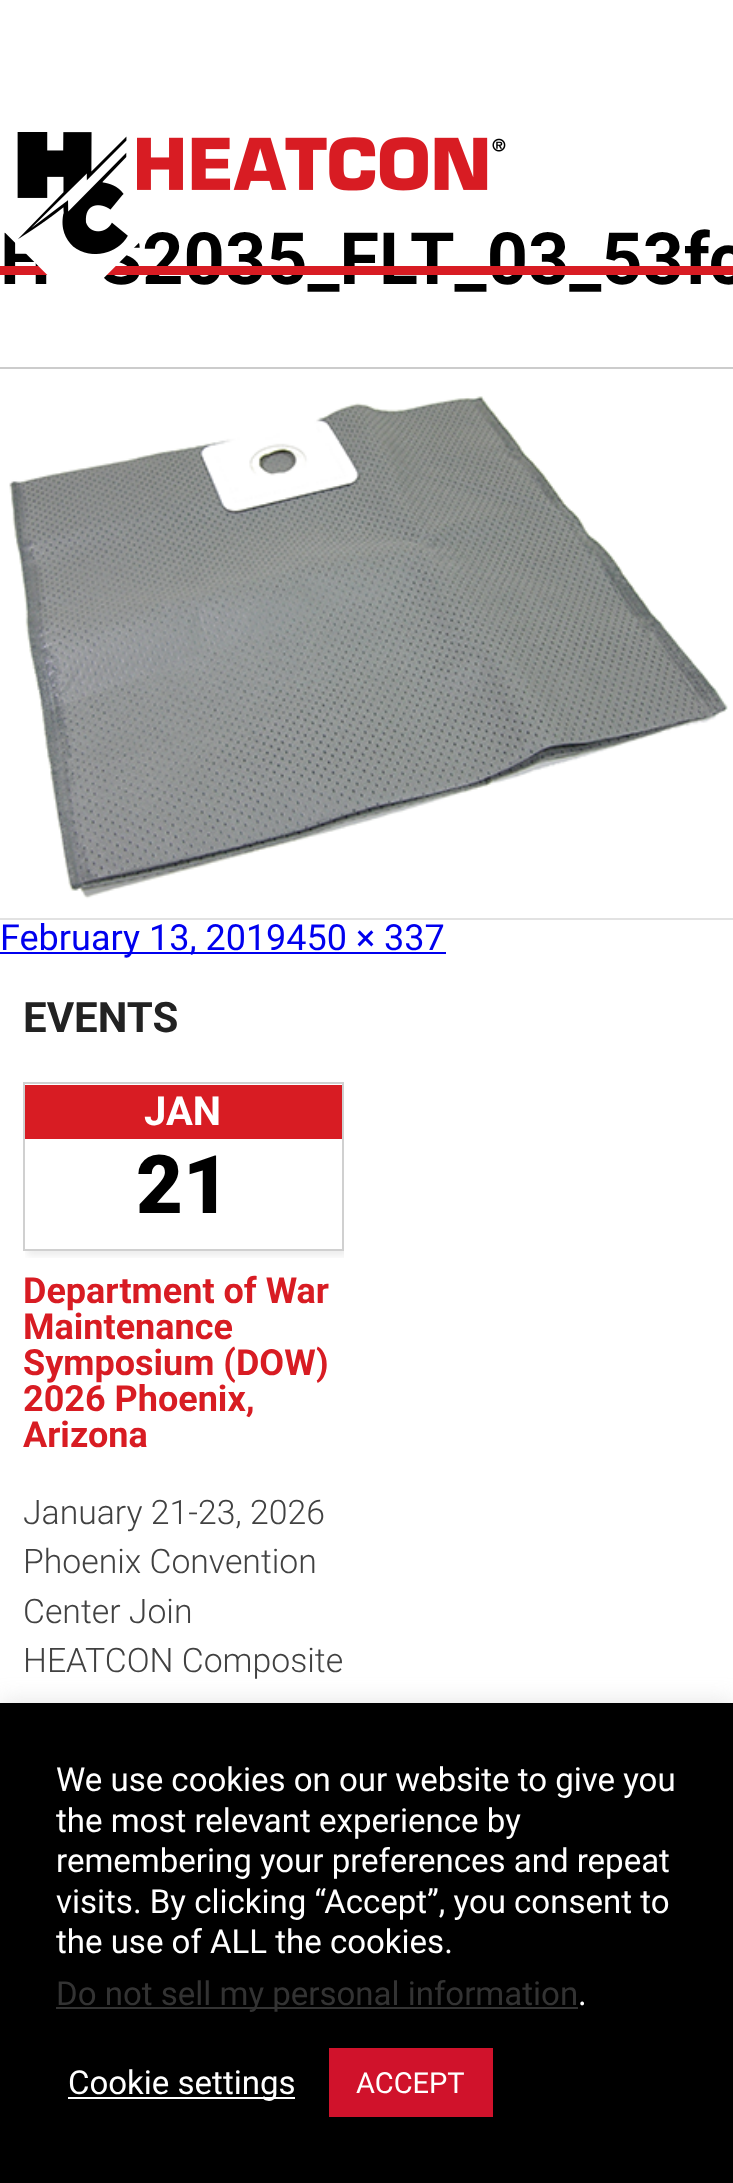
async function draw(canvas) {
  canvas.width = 733
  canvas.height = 2183
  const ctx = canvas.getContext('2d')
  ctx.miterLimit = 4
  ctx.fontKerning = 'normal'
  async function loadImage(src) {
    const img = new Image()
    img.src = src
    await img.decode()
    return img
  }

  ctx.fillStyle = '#fff'
  ctx.fillRect(0, 0, 733, 2183)
  ctx.font = 'bold 72px Roboto'
  ctx.fillStyle = '#000'
  ctx.fillText('HCS2035_FLT_03_53fc', 0, 284)
  ctx.fillStyle = '#d81c23'
  ctx.fillRect(0, 266, 733, 9)
  ctx.drawImage(await loadImage('image0.png'), 4, 132, 502, 153)
  ctx.fillStyle = '#ccc'
  ctx.fillRect(0, 367, 733, 2)
  ctx.drawImage(await loadImage('image1.png'), 2, 396, 726, 516)
  ctx.fillStyle = '#e2e2e2'
  ctx.fillRect(0, 918, 733, 2)
  ctx.fillStyle = '#00e'
  ctx.fillRect(0, 952, 446, 2)
  ctx.font = '36px Roboto'
  ctx.fillText('February 13, 2019450 × 337', 0, 950)
  ctx.font = 'bold 42px Roboto'
  ctx.fillStyle = '#222'
  ctx.fillText('EVENTS', 23, 1032)
  ctx.save()
  ctx.beginPath()
  ctx.rect(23, 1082, 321, 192)
  ctx.clip()
  ctx.beginPath()
  ctx.rect(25, 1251, 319, 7)
  ctx.clip()
  ctx.fillStyle = '#00000012'
  ctx.filter = 'blur(3.5px)'
  ctx.beginPath()
  ctx.rect(27, 1087, 322, 169)
  ctx.fill()
  ctx.filter = 'none'
  ctx.restore()
  ctx.strokeStyle = '#d0d0d0'
  ctx.lineWidth = 2
  ctx.strokeRect(24, 1083, 319, 167)
  ctx.fillStyle = '#d81c23'
  ctx.fillRect(25, 1085, 317, 54)
  ctx.font = 'bold 40px Roboto'
  ctx.fillStyle = '#fff'
  ctx.fillText('JAN', 144, 1125)
  ctx.font = '900 81px Roboto'
  ctx.fillStyle = '#000'
  ctx.fillText('21', 136, 1213)
  ctx.font = 'bold 36px Roboto'
  ctx.fillStyle = '#d81c23'
  ctx.fillText('Department of War', 23, 1303)
  ctx.fillText('Maintenance', 23, 1339)
  ctx.fillText('Symposium (DOW)', 23, 1375)
  ctx.fillText('2026 Phoenix,', 23, 1411)
  ctx.fillText('Arizona', 23, 1447)
  ctx.font = '300 33.75px Roboto'
  ctx.fillStyle = '#414141'
  ctx.fillText('January 21-23, 2026', 23, 1524)
  ctx.fillText('Phoenix Convention', 23, 1573)
  ctx.fillText('Center Join', 23, 1623)
  ctx.fillText('HEATCON Composite', 23, 1672)
  ctx.fillStyle = '#acabab4d'
  ctx.filter = 'blur(11px)'
  ctx.beginPath()
  ctx.rect(0, 1701, 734, 482)
  ctx.fill()
  ctx.filter = 'none'
  ctx.fillStyle = '#000'
  ctx.fillRect(0, 1703, 733, 480)
  ctx.font = '33px Roboto'
  ctx.fillStyle = '#fff'
  ctx.fillText('We use cookies on our website to give you', 56, 1791)
  ctx.fillText('the most relevant experience by', 56, 1832)
  ctx.fillText('remembering your preferences and repeat', 56, 1872)
  ctx.fillText('visits. By clicking “Accept”, you consent to', 56, 1913)
  ctx.fillText('the use of ALL the cookies.', 56, 1953)
  ctx.fillStyle = '#333'
  ctx.fillRect(56, 2007, 522, 2)
  ctx.fillText('Do not sell my personal information', 56, 2005)
  ctx.fillStyle = '#fff'
  ctx.fillText('.', 578, 2005)
  ctx.fillRect(68, 2097, 227, 2)
  ctx.fillText('Cookie settings', 68, 2094)
  ctx.fillStyle = '#d0122b'
  ctx.fillRect(329, 2048, 164, 69)
  ctx.font = '29px Roboto'
  ctx.fillStyle = '#fff'
  ctx.fillText('ACCEPT', 356, 2093)
}

draw(document.querySelector('canvas'))
